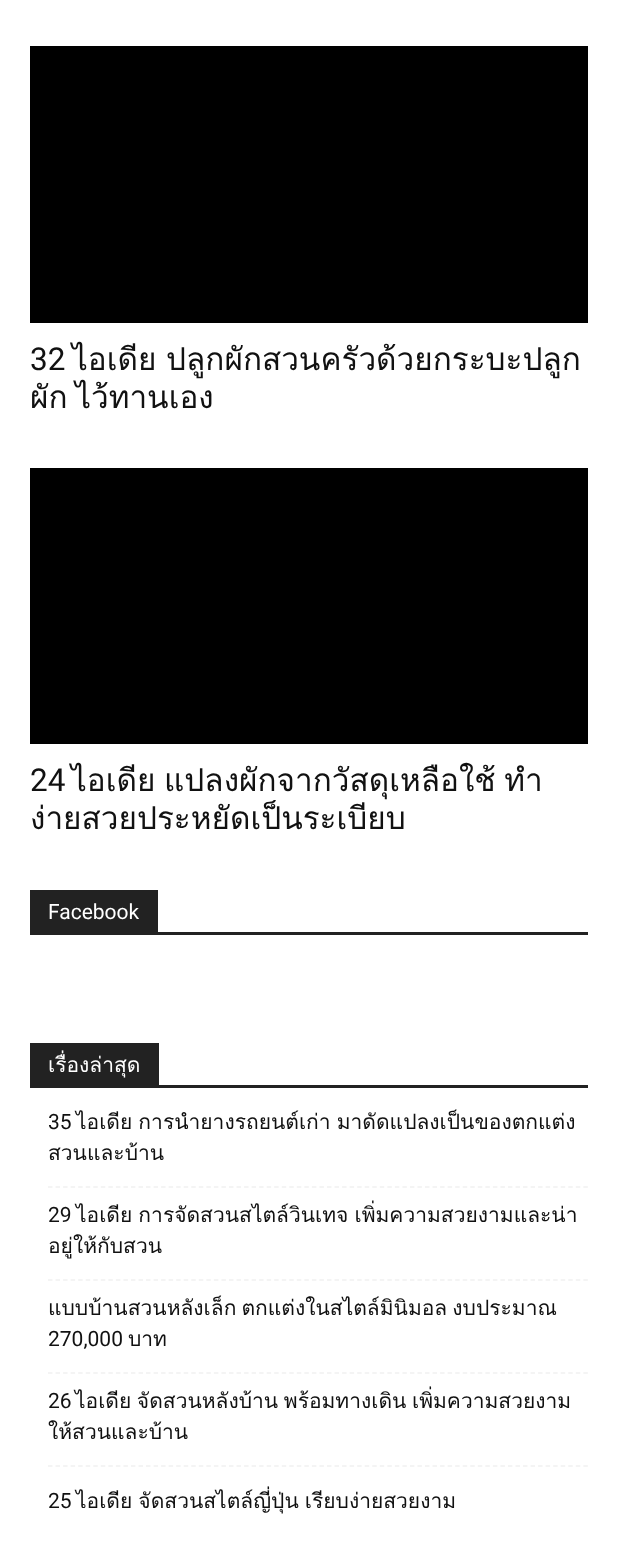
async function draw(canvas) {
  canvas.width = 617
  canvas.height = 1555
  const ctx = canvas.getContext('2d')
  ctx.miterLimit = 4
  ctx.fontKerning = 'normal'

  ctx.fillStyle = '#fff'
  ctx.fillRect(0, 0, 617, 1555)
  ctx.fillStyle = '#000'
  ctx.fillRect(30, 46, 558, 277)
  ctx.font = '31.5px Roboto'
  ctx.fillStyle = '#111'
  ctx.fillText('32', 30, 370)
  ctx.wordSpacing = '-1px'
  ctx.font = '31.5px Loma'
  ctx.fillText('ไอเดีย ปลูกผักสวนครัวด้วยกระบะปลูก', 72, 370)
  ctx.wordSpacing = '-3px'
  ctx.fillText('ผัก ไว้ทานเอง', 30, 408)
  ctx.fillStyle = '#000'
  ctx.fillRect(30, 468, 558, 276)
  ctx.wordSpacing = '0px'
  ctx.font = '31.5px Roboto'
  ctx.fillStyle = '#111'
  ctx.fillText('24', 30, 791)
  ctx.wordSpacing = '-2px'
  ctx.font = '31.5px Loma'
  ctx.fillText('ไอเดีย แปลงผักจากวัสดุเหลือใช้ ทำ', 71, 791)
  ctx.wordSpacing = '0px'
  ctx.fillText('ง่ายสวยประหยัดเป็นระเบียบ', 30, 829)
  ctx.fillStyle = '#222'
  ctx.fillRect(30, 932, 558, 3)
  ctx.fillRect(30, 890, 128, 42)
  ctx.font = '21px Roboto'
  ctx.fillStyle = '#fff'
  ctx.fillText('Facebook', 48, 919)
  ctx.fillStyle = '#222'
  ctx.fillRect(30, 1085, 558, 3)
  ctx.fillRect(30, 1043, 129, 42)
  ctx.font = '21px Loma'
  ctx.fillStyle = '#fff'
  ctx.fillText('เรื่องล่าสุด', 48, 1072)
  ctx.beginPath()
  ctx.moveTo(48, 1187)
  ctx.lineTo(588, 1187)
  ctx.strokeStyle = '#f1f1f1'
  ctx.lineWidth = 1.5
  ctx.setLineDash([4.5, 3.04])
  ctx.stroke()
  ctx.font = '21px Roboto'
  ctx.fillStyle = '#111'
  ctx.fillText('35', 48, 1129)
  ctx.wordSpacing = '-1px'
  ctx.font = '21px Loma'
  ctx.fillText('ไอเดีย การนำยางรถยนต์เก่า มาดัดแปลงเป็นของตกแต่ง', 76, 1129)
  ctx.wordSpacing = '0px'
  ctx.fillText('สวนและบ้าน', 48, 1160)
  ctx.beginPath()
  ctx.moveTo(48, 1280)
  ctx.lineTo(588, 1280)
  ctx.stroke()
  ctx.font = '21px Roboto'
  ctx.fillText('29', 48, 1222)
  ctx.wordSpacing = '-1px'
  ctx.font = '21px Loma'
  ctx.fillText('ไอเดีย การจัดสวนสไตล์วินเทจ เพิ่มความสวยงามและน่า', 76, 1222)
  ctx.wordSpacing = '0px'
  ctx.fillText('อยู่ให้กับสวน', 48, 1253)
  ctx.beginPath()
  ctx.moveTo(48, 1373)
  ctx.lineTo(588, 1373)
  ctx.stroke()
  ctx.wordSpacing = '-2px'
  ctx.fillText('แบบบ้านสวนหลังเล็ก ตกแต่งในสไตล์มินิมอล งบประมาณ', 48, 1315)
  ctx.wordSpacing = '0px'
  ctx.font = '21px Roboto'
  ctx.fillText('270,000', 48, 1346)
  ctx.font = '21px Loma'
  ctx.fillText('บาท', 128, 1346)
  ctx.beginPath()
  ctx.moveTo(48, 1466)
  ctx.lineTo(588, 1466)
  ctx.stroke()
  ctx.font = '21px Roboto'
  ctx.fillText('26', 48, 1408)
  ctx.wordSpacing = '-1.5px'
  ctx.font = '21px Loma'
  ctx.fillText('ไอเดีย จัดสวนหลังบ้าน พร้อมทางเดิน เพิ่มความสวยงาม', 75, 1408)
  ctx.wordSpacing = '0px'
  ctx.fillText('ให้สวนและบ้าน', 48, 1439)
  ctx.font = '21px Roboto'
  ctx.fillText('25', 48, 1508)
  ctx.wordSpacing = '-1px'
  ctx.font = '21px Loma'
  ctx.fillText('ไอเดีย จัดสวนสไตล์ญี่ปุ่น เรียบง่ายสวยงาม', 76, 1508)
}

draw(document.querySelector('canvas'))
